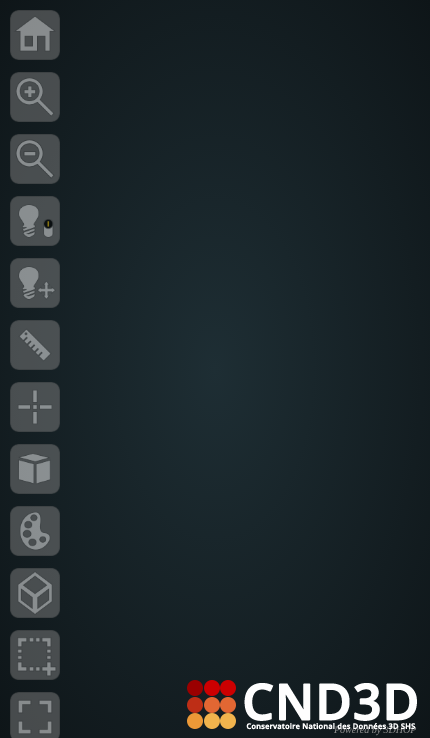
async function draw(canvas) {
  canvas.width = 430
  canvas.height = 738
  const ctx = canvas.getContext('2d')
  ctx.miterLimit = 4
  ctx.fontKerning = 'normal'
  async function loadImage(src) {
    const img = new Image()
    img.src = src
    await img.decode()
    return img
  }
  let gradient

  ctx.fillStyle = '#fff'
  ctx.fillRect(0, 0, 430, 738)
  gradient = ctx.createRadialGradient(215, 214.9, 0, 215, 214.9, 304)
  gradient.addColorStop(0, '#1e2e34')
  gradient.addColorStop(1, '#0e1518')
  ctx.fillStyle = gradient
  ctx.beginPath()
  ctx.rect(0, 0, 430, 738)
  ctx.save()
  ctx.clip()
  ctx.scale(1, 522 / 304)
  ctx.fillRect(0, 0, 430, 430)
  ctx.restore()
  ctx.drawImage(await loadImage('image0.png'), 10, 10, 50, 50)
  ctx.drawImage(await loadImage('image1.png'), 10, 72, 50, 50)
  ctx.drawImage(await loadImage('image2.png'), 10, 134, 50, 50)
  ctx.drawImage(await loadImage('image3.png'), 10, 196, 50, 50)
  ctx.drawImage(await loadImage('image4.png'), 10, 258, 50, 50)
  ctx.drawImage(await loadImage('image5.png'), 10, 320, 50, 50)
  ctx.drawImage(await loadImage('image6.png'), 10, 382, 50, 50)
  ctx.drawImage(await loadImage('image7.png'), 10, 444, 50, 50)
  ctx.drawImage(await loadImage('image8.png'), 10, 506, 50, 50)
  ctx.drawImage(await loadImage('image9.png'), 10, 568, 50, 50)
  ctx.drawImage(await loadImage('image10.png'), 10, 630, 50, 50)
  ctx.drawImage(await loadImage('image11.png'), 10, 692, 50, 46)
  ctx.font = 'italic 10px Liberation Serif'
  ctx.fillStyle = '#909090'
  ctx.fillText('Powered by 3DHOP', 334, 733)
  ctx.drawImage(await loadImage('image12.png'), 187, 680, 230, 50)
}

draw(document.querySelector('canvas'))
